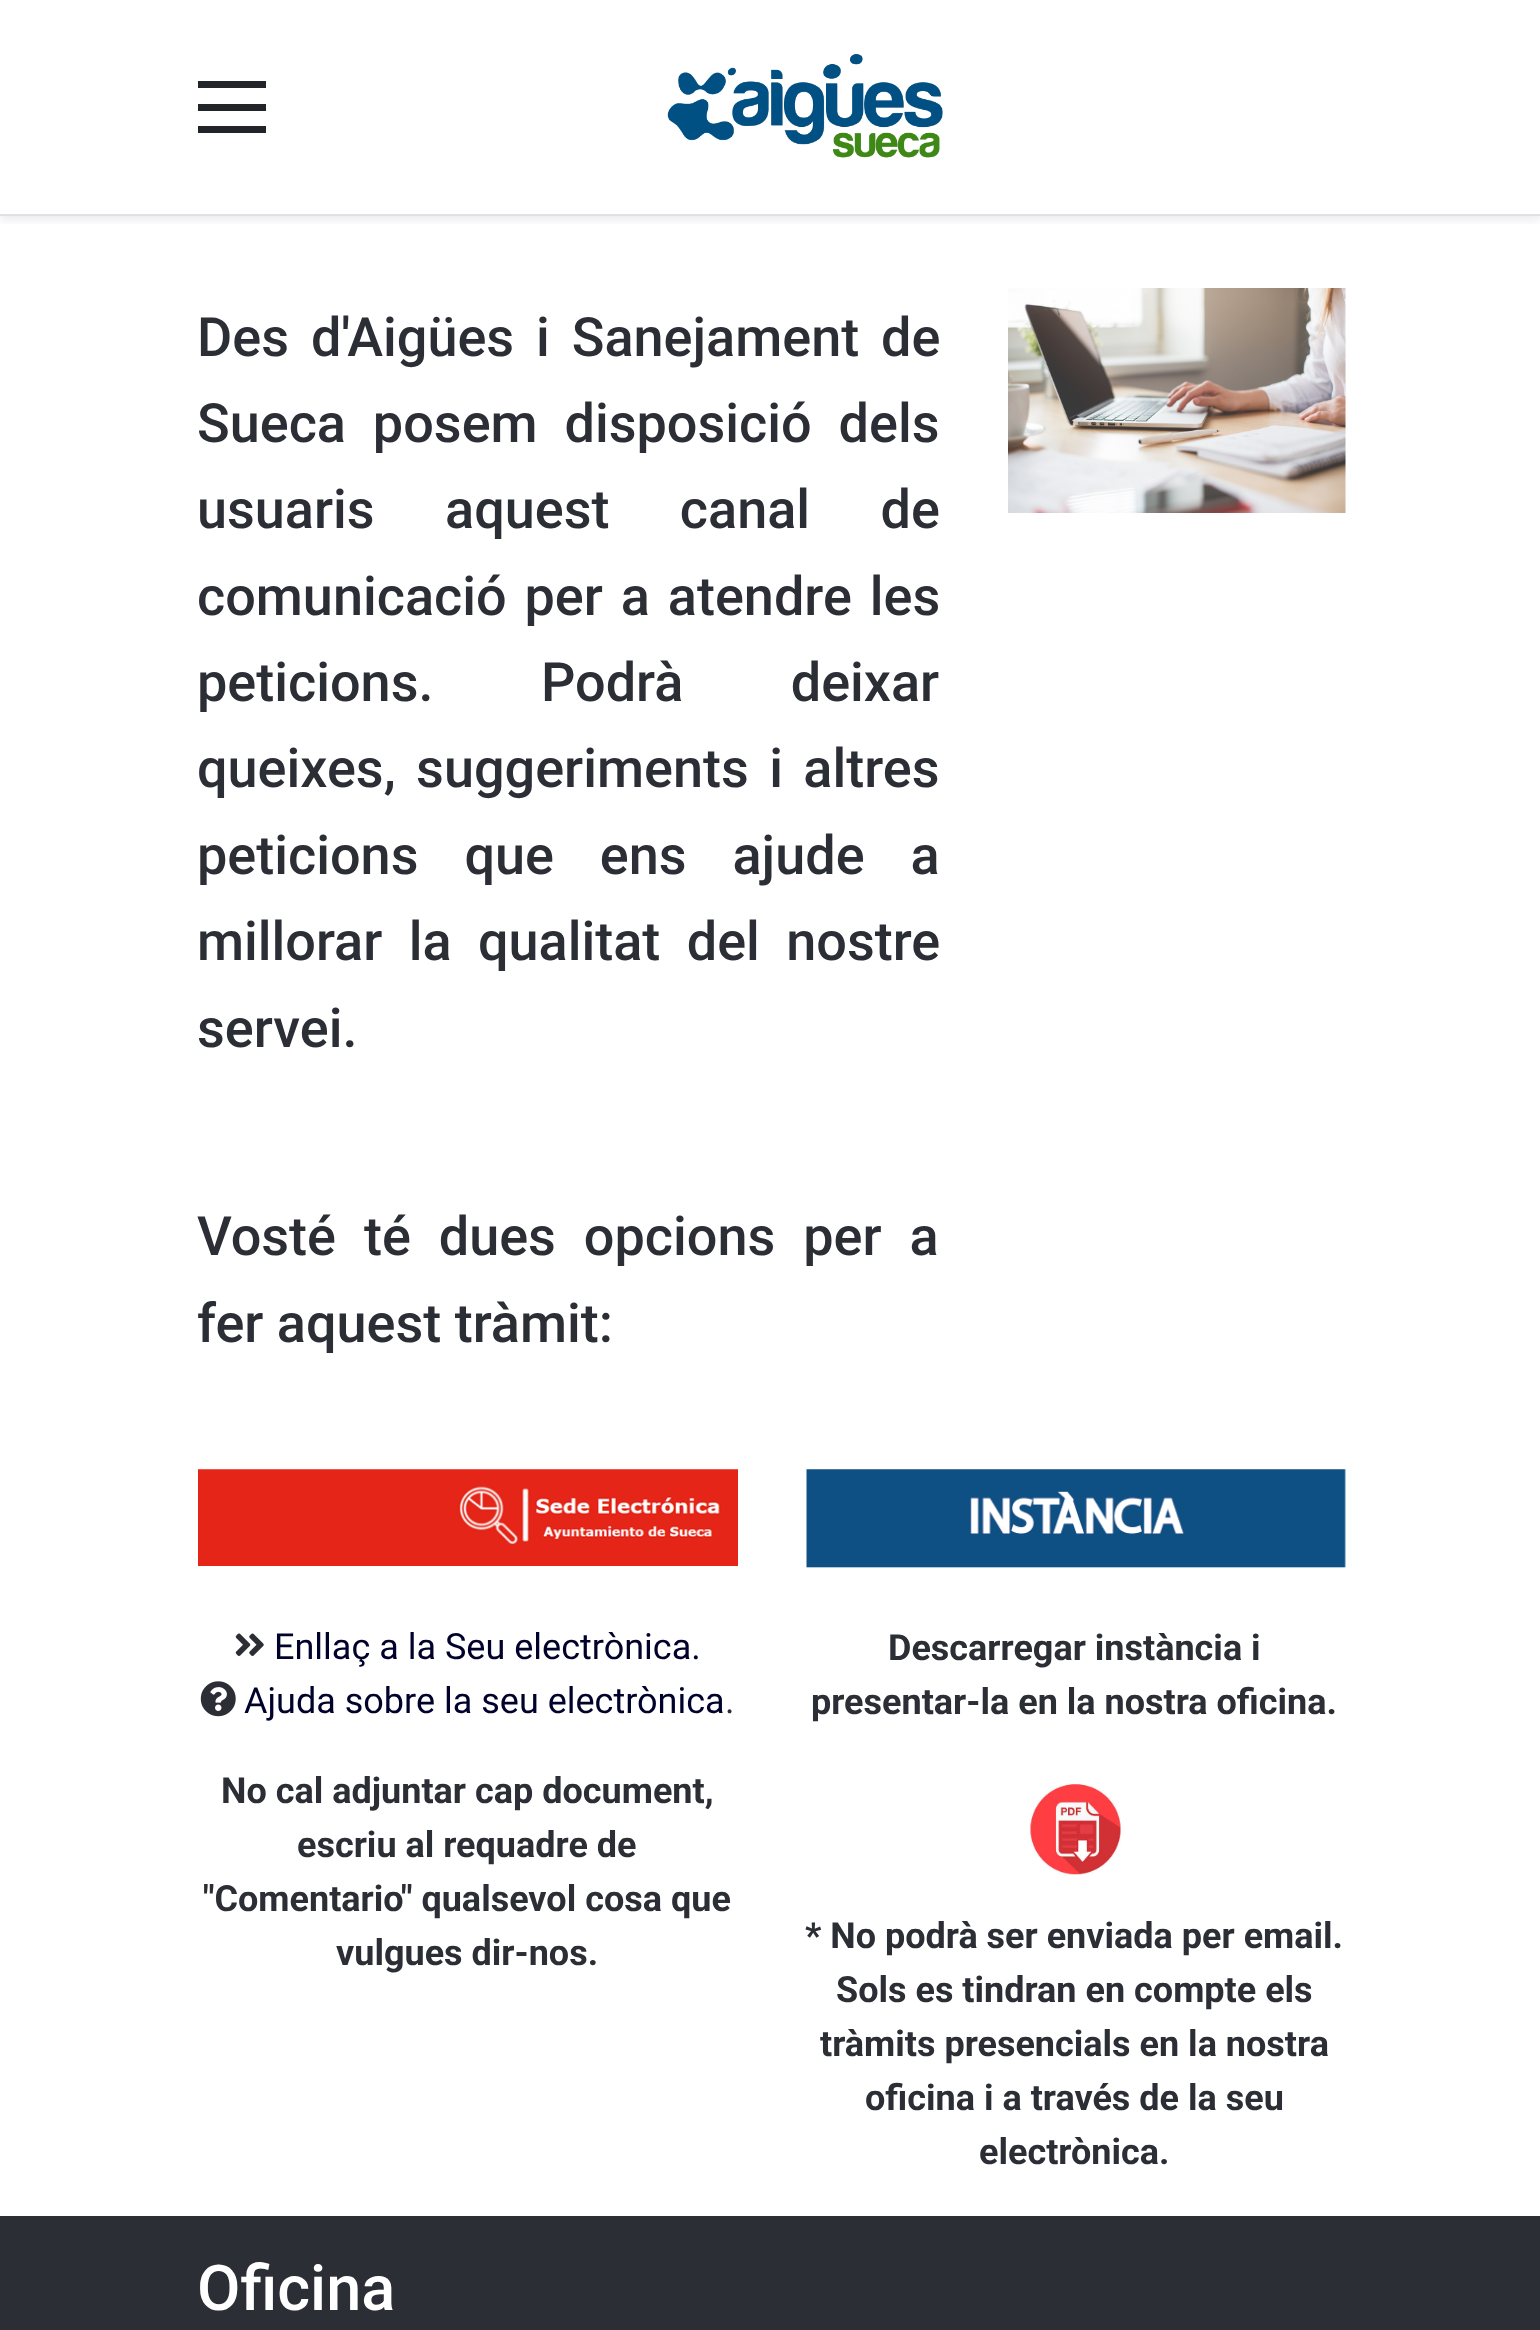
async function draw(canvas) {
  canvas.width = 1540
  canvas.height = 2330
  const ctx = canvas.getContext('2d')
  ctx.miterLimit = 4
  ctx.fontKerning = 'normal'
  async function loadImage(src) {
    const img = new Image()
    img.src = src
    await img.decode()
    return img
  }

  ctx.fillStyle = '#fff'
  ctx.fillRect(0, 0, 1540, 2330)
  ctx.save()
  ctx.beginPath()
  ctx.rect(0, 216, 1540, 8)
  ctx.clip()
  ctx.fillStyle = '#00000012'
  ctx.filter = 'blur(4.5px)'
  ctx.beginPath()
  ctx.rect(0, 5, 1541, 216)
  ctx.fill()
  ctx.filter = 'none'
  ctx.restore()
  ctx.fillStyle = '#dee2e6'
  ctx.fillRect(0, 214, 1540, 2)
  ctx.fillStyle = '#212529'
  ctx.fillRect(198, 104, 68, 7)
  ctx.fillRect(198, 81, 68, 7)
  ctx.fillRect(198, 126, 68, 7)
  ctx.drawImage(await loadImage('image0.png'), 667, 54, 276, 104)
  ctx.wordSpacing = '8.5px'
  ctx.font = '500 54px Roboto'
  ctx.fillStyle = '#2c2e36'
  ctx.fillText('Des d\'Aigües i Sanejament de', 197, 356)
  ctx.wordSpacing = '13.5px'
  ctx.fillText('Sueca posem disposició dels', 197, 442)
  ctx.wordSpacing = '57px'
  ctx.fillText('usuaris aquest canal de', 197, 528)
  ctx.wordSpacing = '4.5px'
  ctx.fillText('comunicació per a atendre les', 197, 615)
  ctx.wordSpacing = '94px'
  ctx.fillText('peticions. Podrà deixar', 197, 701)
  ctx.wordSpacing = '7px'
  ctx.fillText('queixes, suggeriments i altres', 197, 787)
  ctx.wordSpacing = '32.5px'
  ctx.fillText('peticions que ens ajude a', 197, 874)
  ctx.wordSpacing = '13px'
  ctx.fillText('millorar la qualitat del nostre', 197, 960)
  ctx.wordSpacing = '0px'
  ctx.fillText('servei.', 197, 1047)
  ctx.wordSpacing = '14.5px'
  ctx.fillText('Vosté té dues opcions per a', 197, 1255)
  ctx.wordSpacing = '0px'
  ctx.fillText('fer aquest tràmit:', 197, 1342)
  ctx.drawImage(await loadImage('image1.png'), 1008, 288, 338, 225)
  ctx.drawImage(await loadImage('image2.png'), 198, 1469, 540, 97)
  ctx.drawImage(await loadImage('image3.png'), 235, 1633, 29, 23)
  ctx.font = '36px Roboto'
  ctx.fillStyle = '#01022c'
  ctx.fillText('Enllaç a la Seu electrònica.', 274, 1659)
  ctx.drawImage(await loadImage('image4.png'), 200, 1681, 36, 36)
  ctx.fillText('Ajuda sobre la seu electrònica', 244, 1713)
  ctx.fillStyle = '#2c2e36'
  ctx.fillText('.', 725, 1713)
  ctx.font = 'bold 36px Roboto'
  ctx.fillText('No cal adjuntar cap document,', 221, 1803)
  ctx.fillText('escriu al requadre de', 297, 1857)
  ctx.fillText('"Comentario', 203, 1911)
  ctx.fillText('" qualsevol cosa que', 401, 1911)
  ctx.fillText('vulgues dir-nos.', 336, 1965)
  ctx.drawImage(await loadImage('image5.png'), 806, 1469, 540, 99)
  ctx.fillText('Descarregar instància i', 888, 1660)
  ctx.fillText('presentar-la en la nostra oficina.', 811, 1714)
  ctx.drawImage(await loadImage('image6.png'), 1030, 1784, 91, 91)
  ctx.fillText('* No podrà ser enviada per email.', 805, 1948)
  ctx.fillText('Sols es tindran en compte els', 836, 2002)
  ctx.fillText('tràmits presencials en la nostra', 820, 2056)
  ctx.fillText('oficina i a través de la seu', 865, 2110)
  ctx.fillText('electrònica.', 979, 2164)
  ctx.fillRect(0, 2216, 1540, 114)
  ctx.font = '500 63px Roboto'
  ctx.fillStyle = '#fff'
  ctx.fillText('Oficina', 197, 2310)
}

draw(document.querySelector('canvas'))
